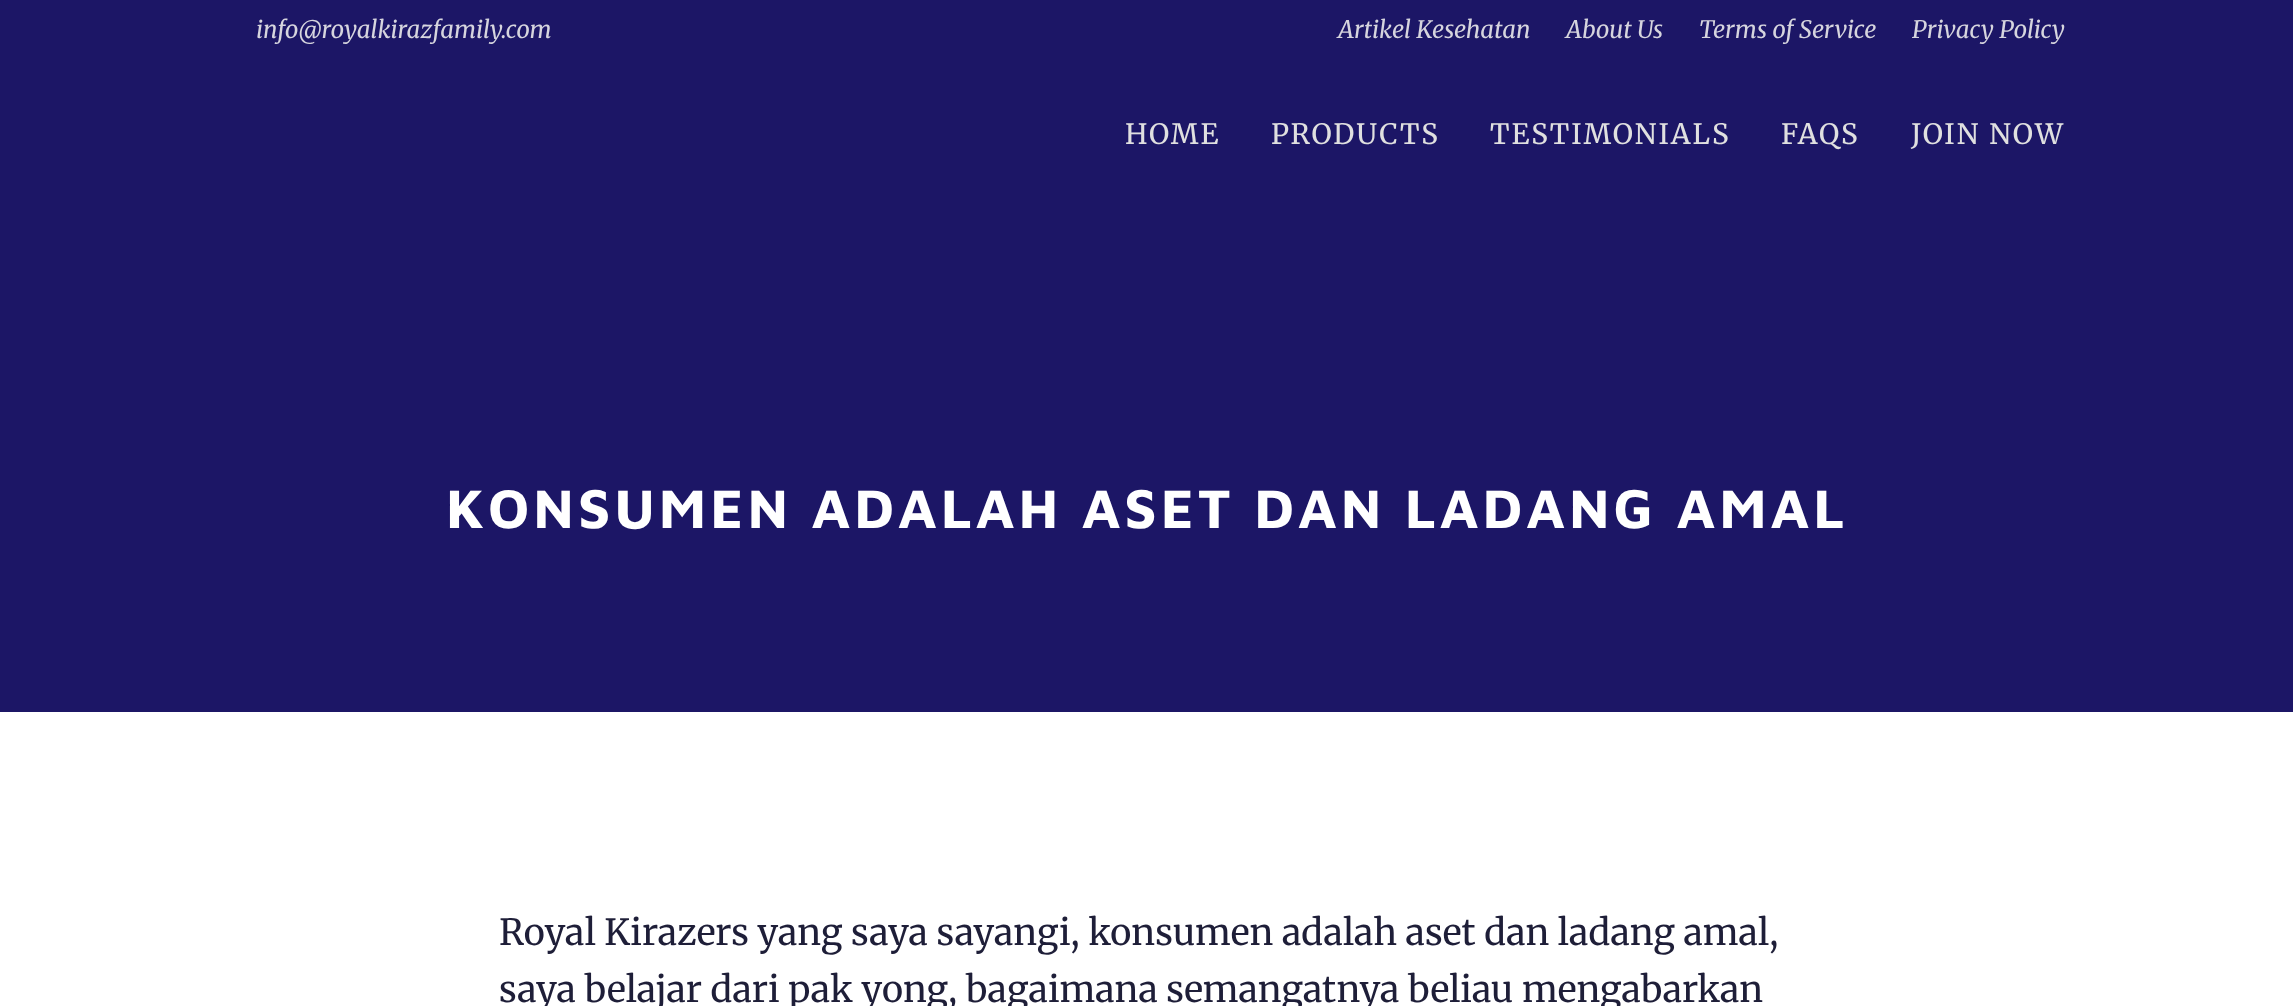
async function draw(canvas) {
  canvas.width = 2293
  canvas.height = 1006
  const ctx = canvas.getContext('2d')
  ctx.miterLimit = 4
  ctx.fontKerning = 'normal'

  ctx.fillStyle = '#fff'
  ctx.fillRect(0, 0, 2293, 1006)
  ctx.fillStyle = '#1c1666'
  ctx.fillRect(0, 0, 2293, 712)
  ctx.font = 'italic 24px Merriweather'
  ctx.fillStyle = '#d6d5de'
  ctx.fillText('info@royalkirazfamily.com', 256, 38)
  ctx.fillText('Artikel Kesehatan', 1338, 38)
  ctx.fillText('About Us', 1566, 38)
  ctx.fillText('Terms of Service', 1699, 38)
  ctx.fillText('Privacy Policy', 1912, 38)
  ctx.letterSpacing = '2px'
  ctx.font = '28px Merriweather'
  ctx.fillStyle = '#e0e0e0'
  ctx.fillText('HOME', 1125, 144)
  ctx.fillText('PRODUCTS', 1271, 144)
  ctx.fillText('TESTIMONIALS', 1490, 144)
  ctx.fillText('FAQS', 1781, 144)
  ctx.fillText('JOIN NOW', 1911, 144)
  ctx.letterSpacing = '4px'
  ctx.font = 'bold 56px Maven Pro'
  ctx.fillStyle = '#fff'
  ctx.fillText('KONSUMEN ADALAH ASET DAN LADANG AMAL', 446, 528)
  ctx.letterSpacing = '0px'
  ctx.font = '36px Merriweather'
  ctx.fillStyle = '#1e1e38'
  ctx.fillText('Royal Kirazers yang saya sayangi, konsumen adalah aset dan ladang amal,', 499, 945)
  ctx.fillText('saya belajar dari pak yong, bagaimana semangatnya beliau mengabarkan', 499, 1002)
}

draw(document.querySelector('canvas'))
